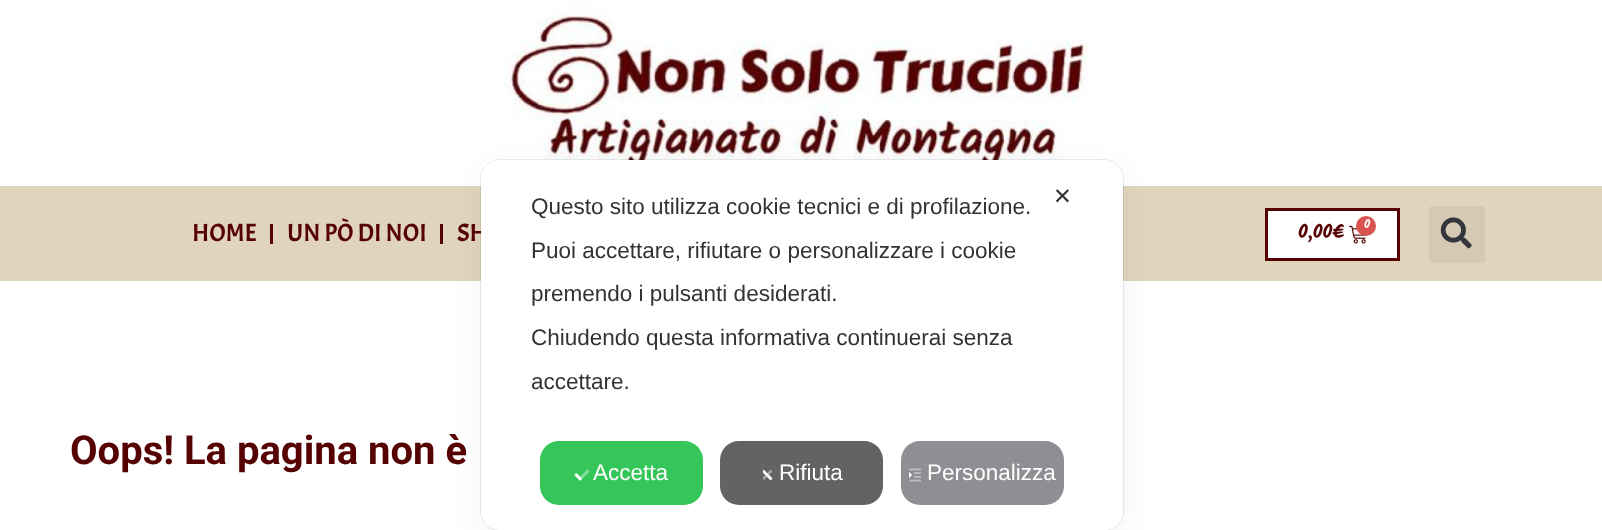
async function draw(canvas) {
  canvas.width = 1602
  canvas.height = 530
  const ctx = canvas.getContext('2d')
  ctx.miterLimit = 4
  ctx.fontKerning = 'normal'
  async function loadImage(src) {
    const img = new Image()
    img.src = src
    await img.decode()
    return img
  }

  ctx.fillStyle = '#fff'
  ctx.fillRect(0, 0, 1602, 530)
  ctx.drawImage(await loadImage('image3.png'), 494, 0, 598, 161)
  ctx.fillStyle = '#e0d4bc'
  ctx.fillRect(0, 186, 1602, 95)
  ctx.font = '25px Acme'
  ctx.fillStyle = '#560202'
  ctx.fillText('SH', 457, 241)
  ctx.beginPath()
  ctx.roundRect(480.5, 159.5, 643, 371, 19.5)
  ctx.strokeStyle = '#00000014'
  ctx.stroke()
  ctx.fillRect(440, 224, 3, 20)
  ctx.fillStyle = '#0000000d'
  ctx.filter = 'blur(15px)'
  ctx.beginPath()
  ctx.roundRect(481, 168, 642, 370, 19)
  ctx.fill()
  ctx.filter = 'none'
  ctx.fillStyle = '#fff'
  ctx.beginPath()
  ctx.roundRect(481, 160, 642, 370, 19)
  ctx.fill()
  ctx.font = '22.5px Liberation Sans'
  ctx.fillStyle = '#333'
  ctx.fillText('Questo sito utilizza cookie tecnici e di profilazione.', 531, 214)
  ctx.fillText('Puoi accettare, rifiutare o personalizzare i cookie', 531, 258)
  ctx.fillText('premendo i pulsanti desiderati.', 531, 301)
  ctx.fillText('Chiudendo questa informativa continuerai senza', 531, 345)
  ctx.fillText('accettare.', 531, 389)
  ctx.fillStyle = '#34c659'
  ctx.beginPath()
  ctx.roundRect(540, 441, 163, 64, 19)
  ctx.fill()
  ctx.drawImage(await loadImage('image0.png'), 574, 469, 15, 12)
  ctx.fillStyle = '#fff'
  ctx.fillText('Accetta', 593, 480)
  ctx.fillStyle = '#636366'
  ctx.beginPath()
  ctx.roundRect(720, 441, 163, 64, 19)
  ctx.fill()
  ctx.drawImage(await loadImage('image1.png'), 763, 469, 10, 12)
  ctx.fillStyle = '#fff'
  ctx.fillText('Rifiuta', 779, 480)
  ctx.fillStyle = '#8e8e93'
  ctx.beginPath()
  ctx.roundRect(901, 441, 163, 64, 19)
  ctx.fill()
  ctx.drawImage(await loadImage('image2.png'), 909, 468, 12, 14)
  ctx.fillStyle = '#fff'
  ctx.fillText('Personalizza', 927, 480)
  ctx.font = '22.5px DejaVu Sans'
  ctx.fillStyle = '#333'
  ctx.fillText('✕', 1053, 204)
  ctx.font = '25px Acme'
  ctx.fillStyle = '#560202'
  ctx.fillText('HOME', 192, 241)
  ctx.fillRect(270, 224, 3, 20)
  ctx.fillText('UN PÒ DI NOI', 287, 241)
  ctx.fillStyle = '#fff'
  ctx.beginPath()
  ctx.rect(1266.5, 209.5, 132, 50)
  ctx.fill()
  ctx.strokeStyle = '#560202'
  ctx.lineWidth = 3
  ctx.stroke()
  ctx.drawImage(await loadImage('image4.png'), 1349, 225, 17, 19)
  ctx.fillStyle = '#d9534f'
  ctx.beginPath()
  ctx.arc(1366, 226, 10, 0, 2 * Math.PI)
  ctx.fill()
  ctx.font = 'bold 12px Kalam'
  ctx.fillStyle = '#fff'
  ctx.fillText('0', 1364, 228)
  ctx.font = 'bold 19px Kalam'
  ctx.fillStyle = '#560202'
  ctx.fillText('0,00€', 1298, 238)
  ctx.fillStyle = '#d5c9b3'
  ctx.beginPath()
  ctx.roundRect(1429, 206, 56, 57, 4)
  ctx.fill()
  ctx.drawImage(await loadImage('image5.png'), 1440, 217, 32, 32)
  ctx.font = 'bold 40px Roboto'
  ctx.fillStyle = '#560202'
  ctx.fillText('Oops! La pagina non è', 70, 464)
}

draw(document.querySelector('canvas'))
